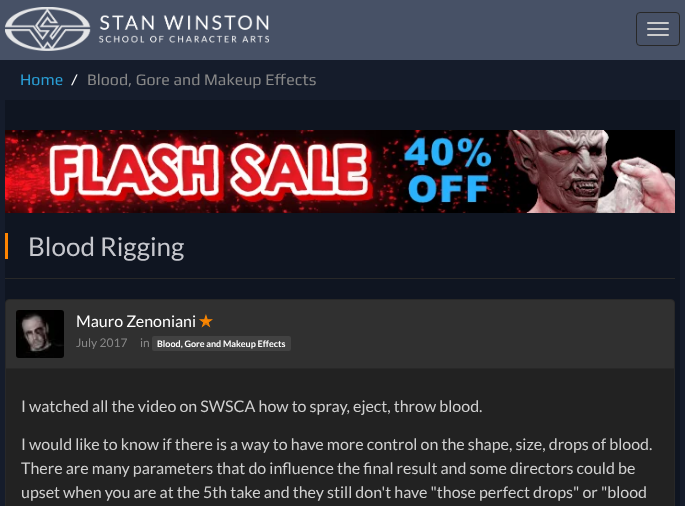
async function draw(canvas) {
  canvas.width = 685
  canvas.height = 506
  const ctx = canvas.getContext('2d')
  ctx.miterLimit = 4
  ctx.fontKerning = 'normal'
  async function loadImage(src) {
    const img = new Image()
    img.src = src
    await img.decode()
    return img
  }

  ctx.fillStyle = '#151c2b'
  ctx.fillRect(0, 0, 685, 506)
  ctx.fillStyle = '#475166'
  ctx.fillRect(0, 0, 685, 60)
  ctx.drawImage(await loadImage('image0.png'), 5, 7, 264, 44)
  ctx.beginPath()
  ctx.roundRect(636.5, 12.5, 43, 33, 3.5)
  ctx.strokeStyle = '#282828'
  ctx.stroke()
  ctx.fillStyle = '#ccc'
  ctx.beginPath()
  ctx.roundRect(647, 22, 22, 2, 1)
  ctx.fill()
  ctx.beginPath()
  ctx.roundRect(647, 28, 22, 2, 1)
  ctx.fill()
  ctx.beginPath()
  ctx.roundRect(647, 34, 22, 2, 1)
  ctx.fill()
  ctx.font = '16px Play'
  ctx.fillStyle = '#2a9fd6'
  ctx.fillText('Home', 20, 85)
  ctx.fillStyle = '#fff'
  ctx.fillText('/', 71, 85)
  ctx.fillStyle = '#888'
  ctx.fillText('Blood, Gore and Makeup Effects', 87, 85)
  ctx.fillStyle = '#0f1521'
  ctx.fillRect(5, 100, 675, 406)
  ctx.drawImage(await loadImage('image1.png'), 5, 130, 670, 83)
  ctx.fillStyle = '#282828'
  ctx.fillRect(5, 278, 670, 1)
  ctx.fillStyle = '#ff8400'
  ctx.fillRect(5, 233, 3, 26)
  ctx.font = '26px Lato'
  ctx.fillStyle = '#c6c7cd'
  ctx.fillText('Blood Rigging', 28, 256)
  ctx.fillStyle = '#222'
  ctx.beginPath()
  ctx.roundRect(5.5, 299.5, 669, 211, 3.5)
  ctx.fill()
  ctx.stroke()
  ctx.fillStyle = '#303030'
  ctx.beginPath()
  ctx.roundRect(6, 300, 668, 69, [3, 3, 0, 0])
  ctx.fill()
  ctx.fillStyle = '#282828'
  ctx.fillRect(6, 368, 668, 1)
  ctx.drawImage(await loadImage('image2.png'), 16, 310, 48, 48)
  ctx.font = '16px Lato'
  ctx.fillStyle = '#fff'
  ctx.fillText('Mauro Zenoniani', 76, 327)
  ctx.font = 'bold 16px DejaVu Sans'
  ctx.fillStyle = '#f80'
  ctx.fillText('✭', 199, 327)
  ctx.font = '12px Lato'
  ctx.fillStyle = '#888'
  ctx.fillText('July 2017', 76, 347)
  ctx.fillText('in', 140, 347)
  ctx.fillStyle = '#424242'
  ctx.beginPath()
  ctx.roundRect(152, 336, 139, 15, 2)
  ctx.fill()
  ctx.font = 'bold 9px Lato'
  ctx.fillStyle = '#fff'
  ctx.fillText('Blood, Gore and Makeup Effects', 157, 347)
  ctx.font = '16px Lato'
  ctx.fillStyle = '#d0d0d0'
  ctx.fillText('I watched all the video on SWSCA how to spray, eject, throw blood.', 21, 412)
  ctx.fillText('I would like to know if there is a way to have more control on the shape, size, drops of blood.', 21, 450)
  ctx.fillText('There are many parameters that do influence the final result and some directors could be', 21, 474)
  ctx.fillText('upset when you are at the 5th take and they still don\'t have "those perfect drops" or "blood', 21, 498)
}

draw(document.querySelector('canvas'))
